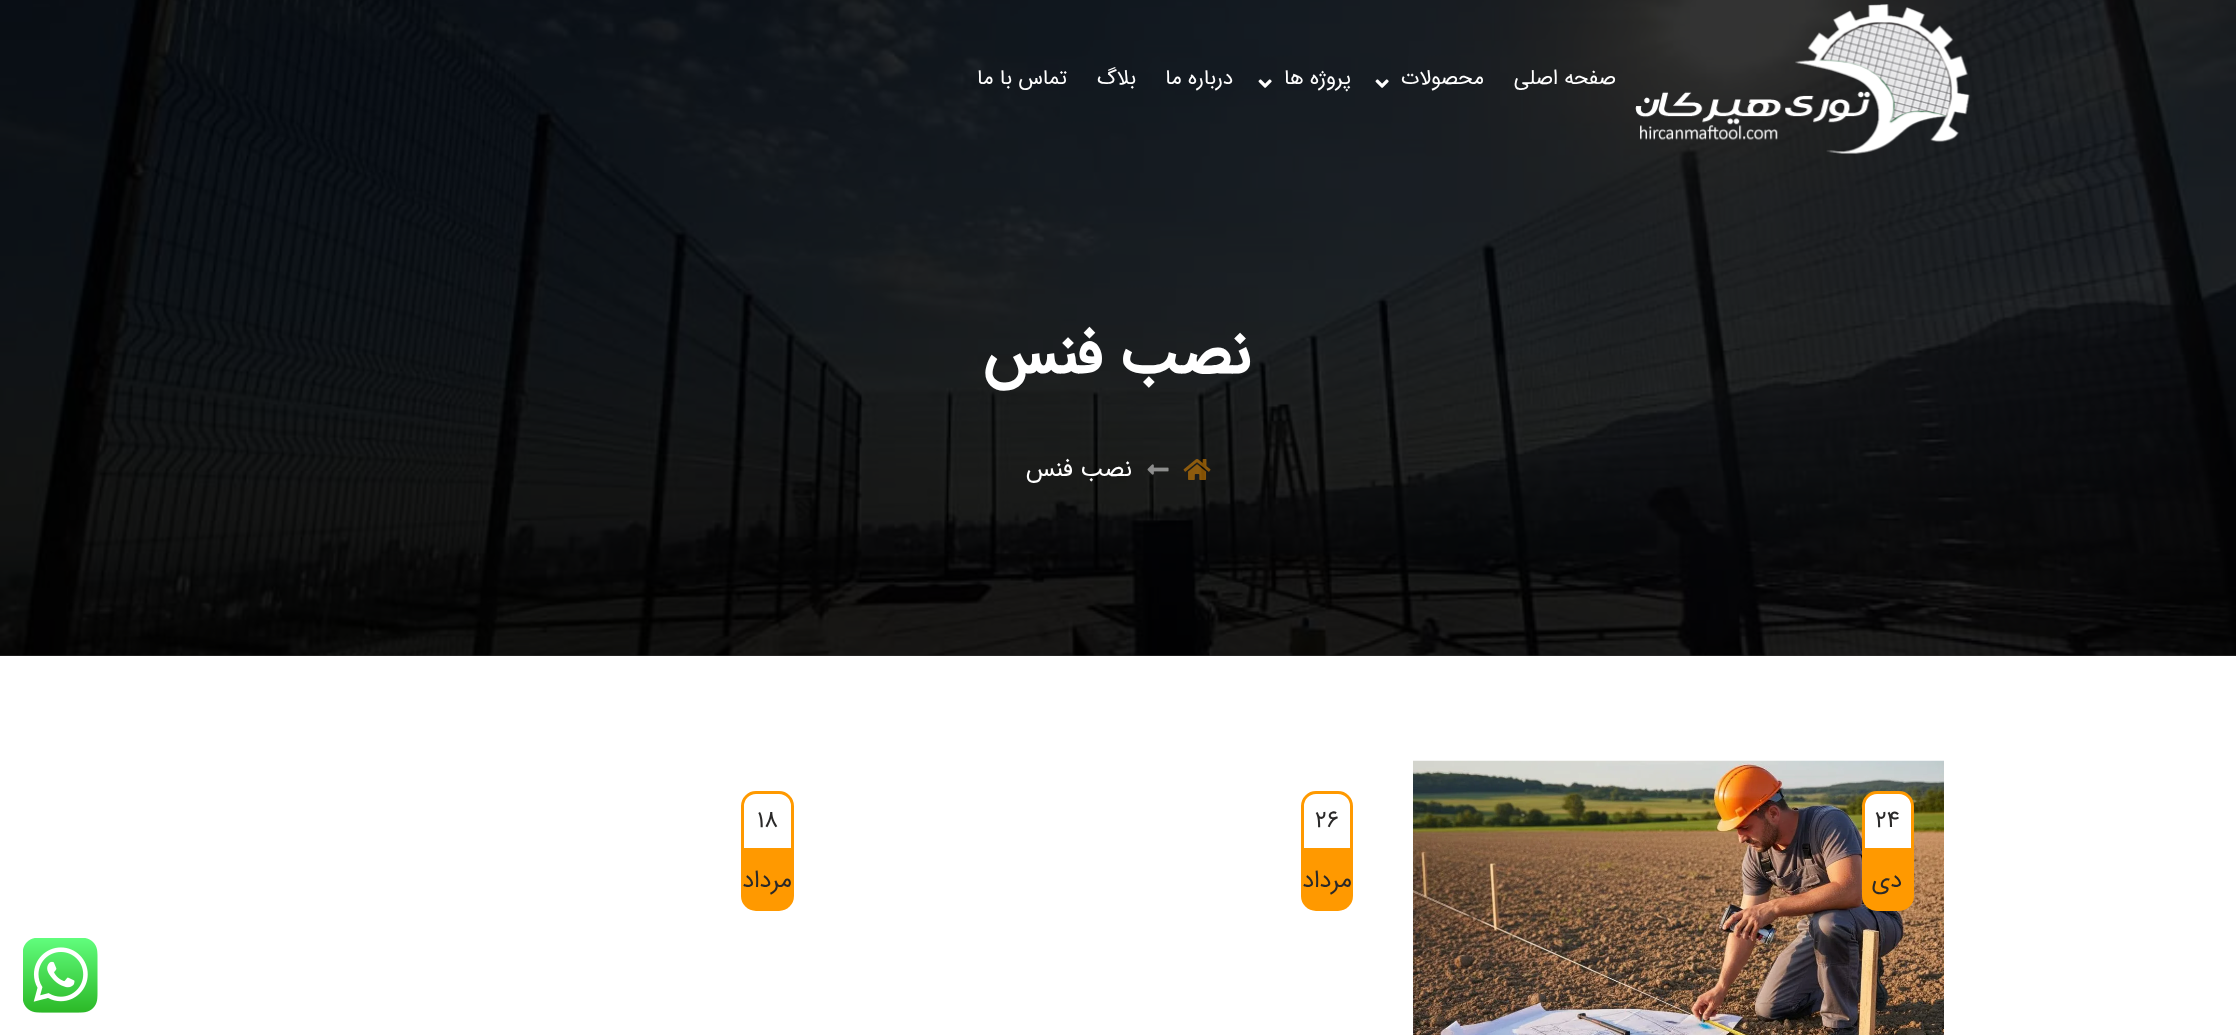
async function draw(canvas) {
  canvas.width = 2236
  canvas.height = 1035
  const ctx = canvas.getContext('2d')
  ctx.miterLimit = 4
  ctx.fontKerning = 'normal'
  async function loadImage(src) {
    const img = new Image()
    img.src = src
    await img.decode()
    return img
  }

  ctx.fillStyle = '#fff'
  ctx.fillRect(0, 0, 2236, 1035)
  ctx.fillStyle = '#333'
  ctx.fillRect(0, 655, 2236, 1)
  ctx.drawImage(await loadImage('image3.png'), 0, 0, 2236, 656)
  ctx.drawImage(await loadImage('image0.png'), 1635, 4, 335, 150)
  ctx.direction = 'rtl'
  ctx.font = '21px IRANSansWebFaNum'
  ctx.fillStyle = '#fff'
  ctx.fillText('صفحه اصلی', 1616, 84)
  ctx.fillText('محصولات', 1484, 84)
  ctx.drawImage(await loadImage('image1.png'), 1375, 79, 14, 9)
  ctx.fillText('پروژه ها', 1351, 84)
  ctx.drawImage(await loadImage('image2.png'), 1258, 79, 14, 9)
  ctx.fillText('درباره ما', 1233, 84)
  ctx.fillText('بلاگ', 1136, 84)
  ctx.fillText('تماس با ما', 1067, 84)
  ctx.font = 'bold 60px IRANSansWebFaNum'
  ctx.fillText('نصب فنس', 1251, 372)
  ctx.drawImage(await loadImage('image4.png'), 1183, 459, 28, 21)
  ctx.drawImage(await loadImage('image5.png'), 1147, 464, 22, 11)
  ctx.font = '24px IRANSansWebFaNum'
  ctx.fillText('نصب فنس', 1132, 476)
  ctx.drawImage(await loadImage('image6.png'), 1413, 760, 531, 275)
  ctx.beginPath()
  ctx.roundRect(1863.5, 792.5, 49, 57, [13.5, 13.5, 0, 0])
  ctx.fill()
  ctx.strokeStyle = '#f90'
  ctx.lineWidth = 3
  ctx.stroke()
  ctx.direction = 'ltr'
  ctx.fillStyle = '#2a2929'
  ctx.fillText('۲۴', 1875, 827)
  ctx.fillStyle = '#f90'
  ctx.beginPath()
  ctx.roundRect(1862, 851, 52, 60, [0, 0, 15, 15])
  ctx.fill()
  ctx.direction = 'rtl'
  ctx.fillStyle = '#2a2929'
  ctx.fillText('دی', 1902, 887)
  ctx.beginPath()
  ctx.roundRect(1302.5, 792.5, 49, 57, [13.5, 13.5, 0, 0])
  ctx.stroke()
  ctx.direction = 'ltr'
  ctx.fillText('۲۶', 1315, 827)
  ctx.fillStyle = '#f90'
  ctx.beginPath()
  ctx.roundRect(1301, 851, 52, 60, [0, 0, 15, 15])
  ctx.fill()
  ctx.direction = 'rtl'
  ctx.fillStyle = '#2a2929'
  ctx.fillText('مرداد', 1352, 887)
  ctx.beginPath()
  ctx.roundRect(742.5, 792.5, 50, 57, [13.5, 13.5, 0, 0])
  ctx.stroke()
  ctx.direction = 'ltr'
  ctx.fillText('۱۸', 757, 827)
  ctx.fillStyle = '#f90'
  ctx.beginPath()
  ctx.roundRect(741, 851, 53, 60, [0, 0, 15, 15])
  ctx.fill()
  ctx.direction = 'rtl'
  ctx.fillStyle = '#2a2929'
  ctx.fillText('مرداد', 792, 887)
  ctx.drawImage(await loadImage('image7.png'), 23, 938, 75, 75)
}

draw(document.querySelector('canvas'))
